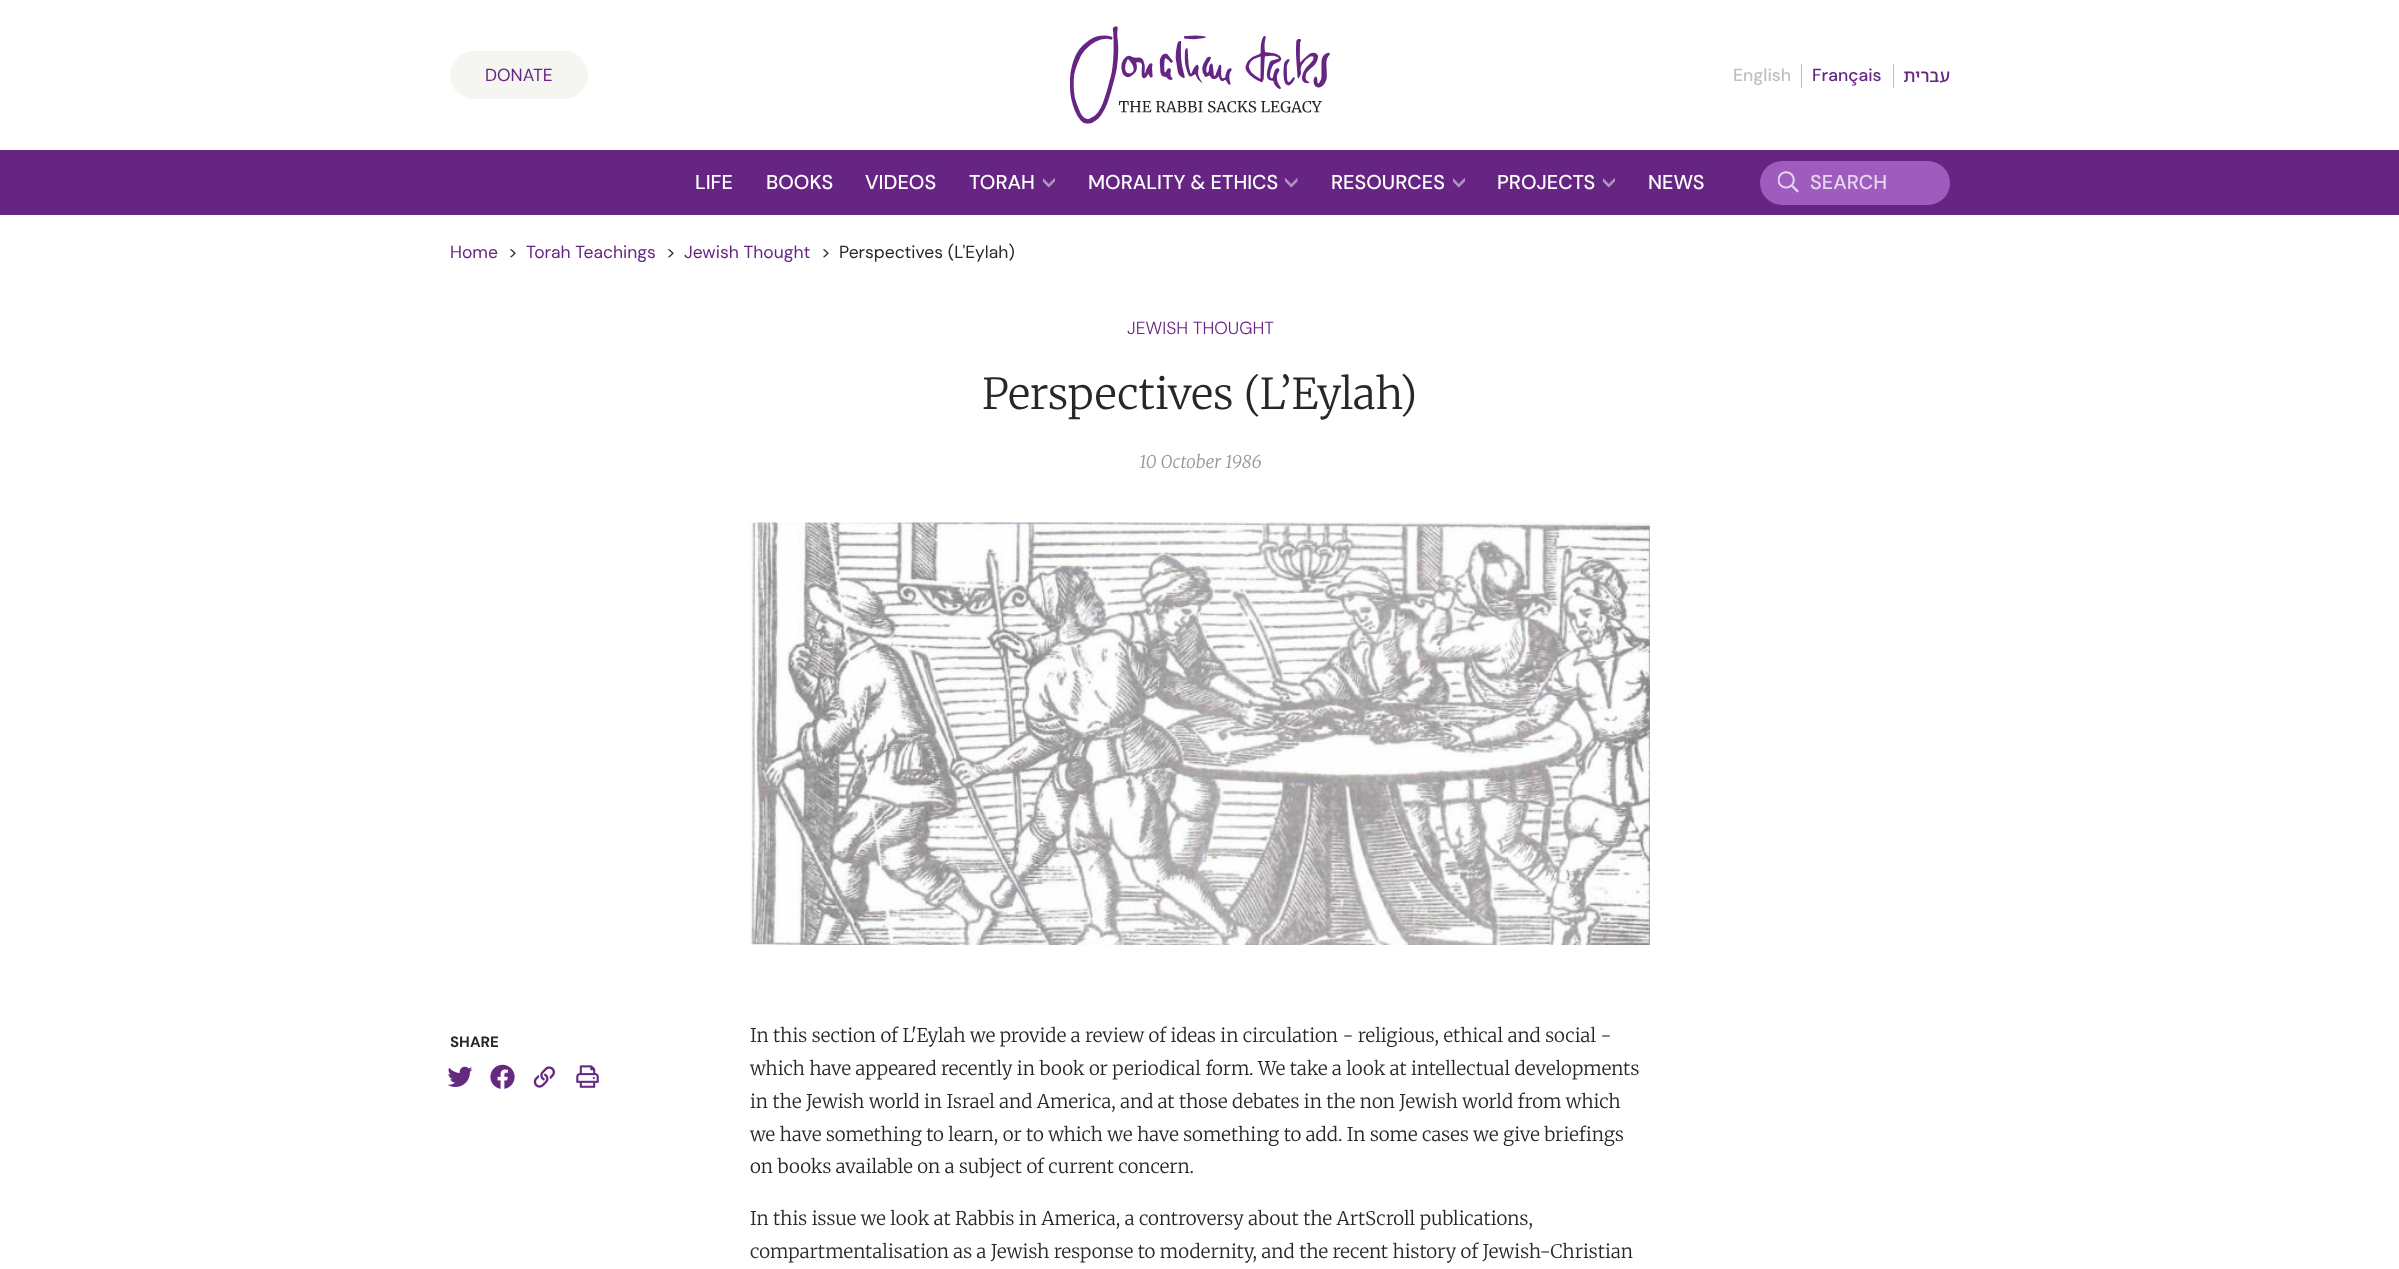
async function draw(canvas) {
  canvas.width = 2399
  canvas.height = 1269
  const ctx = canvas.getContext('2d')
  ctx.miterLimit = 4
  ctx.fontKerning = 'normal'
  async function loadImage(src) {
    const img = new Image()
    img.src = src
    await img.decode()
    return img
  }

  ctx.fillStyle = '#fff'
  ctx.fillRect(0, 0, 2399, 1269)
  ctx.fillStyle = '#f5f5f2'
  ctx.beginPath()
  ctx.roundRect(450, 51, 138, 48, 24)
  ctx.fill()
  ctx.font = '17.5px DM Sans'
  ctx.fillStyle = '#662483'
  ctx.fillText('DONATE', 485, 81)
  ctx.drawImage(await loadImage('image0.png'), 1070, 26, 260, 98)
  ctx.fillStyle = '#bfbfbf'
  ctx.fillRect(1801, 64, 1, 24)
  ctx.font = '500 17.5px DM Sans'
  ctx.fillText('English', 1733, 81)
  ctx.fillRect(1893, 64, 1, 24)
  ctx.fillStyle = '#662483'
  ctx.fillText('Français', 1812, 81)
  ctx.direction = 'rtl'
  ctx.font = '500 17.5px Noto Sans Hebrew'
  ctx.fillText('עברית', 1950, 82)
  ctx.fillRect(0, 150, 2399, 65)
  ctx.direction = 'ltr'
  ctx.font = '500 20px "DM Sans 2"'
  ctx.fillStyle = '#fff'
  ctx.fillText('LIFE', 695, 189)
  ctx.fillText('BOOKS', 766, 189)
  ctx.fillText('VIDEOS', 865, 189)
  ctx.fillText('TORAH', 969, 189)
  ctx.drawImage(await loadImage('image1.png'), 1043, 178, 12, 10)
  ctx.fillText('MORALITY & ETHICS', 1088, 189)
  ctx.drawImage(await loadImage('image2.png'), 1285, 178, 13, 10)
  ctx.fillText('RESOURCES', 1331, 189)
  ctx.drawImage(await loadImage('image1.png'), 1453, 178, 12, 10)
  ctx.fillText('PROJECTS', 1497, 189)
  ctx.drawImage(await loadImage('image1.png'), 1603, 178, 12, 10)
  ctx.fillText('NEWS', 1648, 189)
  ctx.fillStyle = '#9f5cbe'
  ctx.beginPath()
  ctx.roundRect(1760, 161, 190, 44, 22)
  ctx.fill()
  ctx.drawImage(await loadImage('image3.png'), 1778, 171, 21, 22)
  ctx.fillStyle = '#e7d6ef'
  ctx.fillText('SEARCH', 1810, 189)
  ctx.font = '17.5px DM Sans'
  ctx.fillStyle = '#662483'
  ctx.fillText('Home', 450, 258)
  ctx.fillStyle = '#272727'
  ctx.fillText('>', 508, 258)
  ctx.fillStyle = '#662483'
  ctx.fillText('Torah Teachings', 526, 258)
  ctx.fillStyle = '#272727'
  ctx.fillText('>', 666, 258)
  ctx.fillStyle = '#662483'
  ctx.fillText('Jewish Thought', 684, 258)
  ctx.fillStyle = '#272727'
  ctx.fillText('>', 821, 258)
  ctx.fillText('Perspectives (L\'Eylah)', 839, 258)
  ctx.font = '300 17.5px DM Sans'
  ctx.fillStyle = '#662483'
  ctx.fillText('JEWISH THOUGHT', 1127, 334)
  ctx.font = '300 42.5px Merriweather'
  ctx.fillStyle = '#272727'
  ctx.fillText('Perspectives (L’Eylah)', 982, 409)
  ctx.font = 'italic 300 17.5px Merriweather'
  ctx.fillStyle = '#969696'
  ctx.fillText('10 October 1986', 1139, 468)
  ctx.drawImage(await loadImage('image4.png'), 750, 522, 900, 423)
  ctx.font = 'bold 15px DM Sans'
  ctx.fillStyle = '#272727'
  ctx.fillText('SHARE', 450, 1047)
  ctx.drawImage(await loadImage('image5.png'), 447, 1066, 26, 21)
  ctx.drawImage(await loadImage('image6.png'), 490, 1064, 25, 25)
  ctx.drawImage(await loadImage('image7.png'), 533, 1066, 22, 22)
  ctx.drawImage(await loadImage('image8.png'), 576, 1065, 23, 23)
  ctx.font = '300 18.75px Merriweather'
  ctx.fillText('In this section of L\'Eylah we provide a review of ideas in circulation - religious, ethical and social -', 750, 1042)
  ctx.fillText('which have appeared recently in book or periodical form. We take a look at intellectual developments', 750, 1075)
  ctx.fillText('in the Jewish world in Israel and America, and at those debates in the non Jewish world from which', 750, 1108)
  ctx.fillText('we have something to learn, or to which we have something to add. In some cases we give briefings', 750, 1141)
  ctx.fillText('on books available on a subject of current concern.', 750, 1173)
  ctx.fillText('In this issue we look at Rabbis in America, a controversy about the ArtScroll publications,', 750, 1225)
  ctx.fillText('compartmentalisation as a Jewish response to modernity, and the recent history of Jewish-Christian', 750, 1258)
}

draw(document.querySelector('canvas'))
